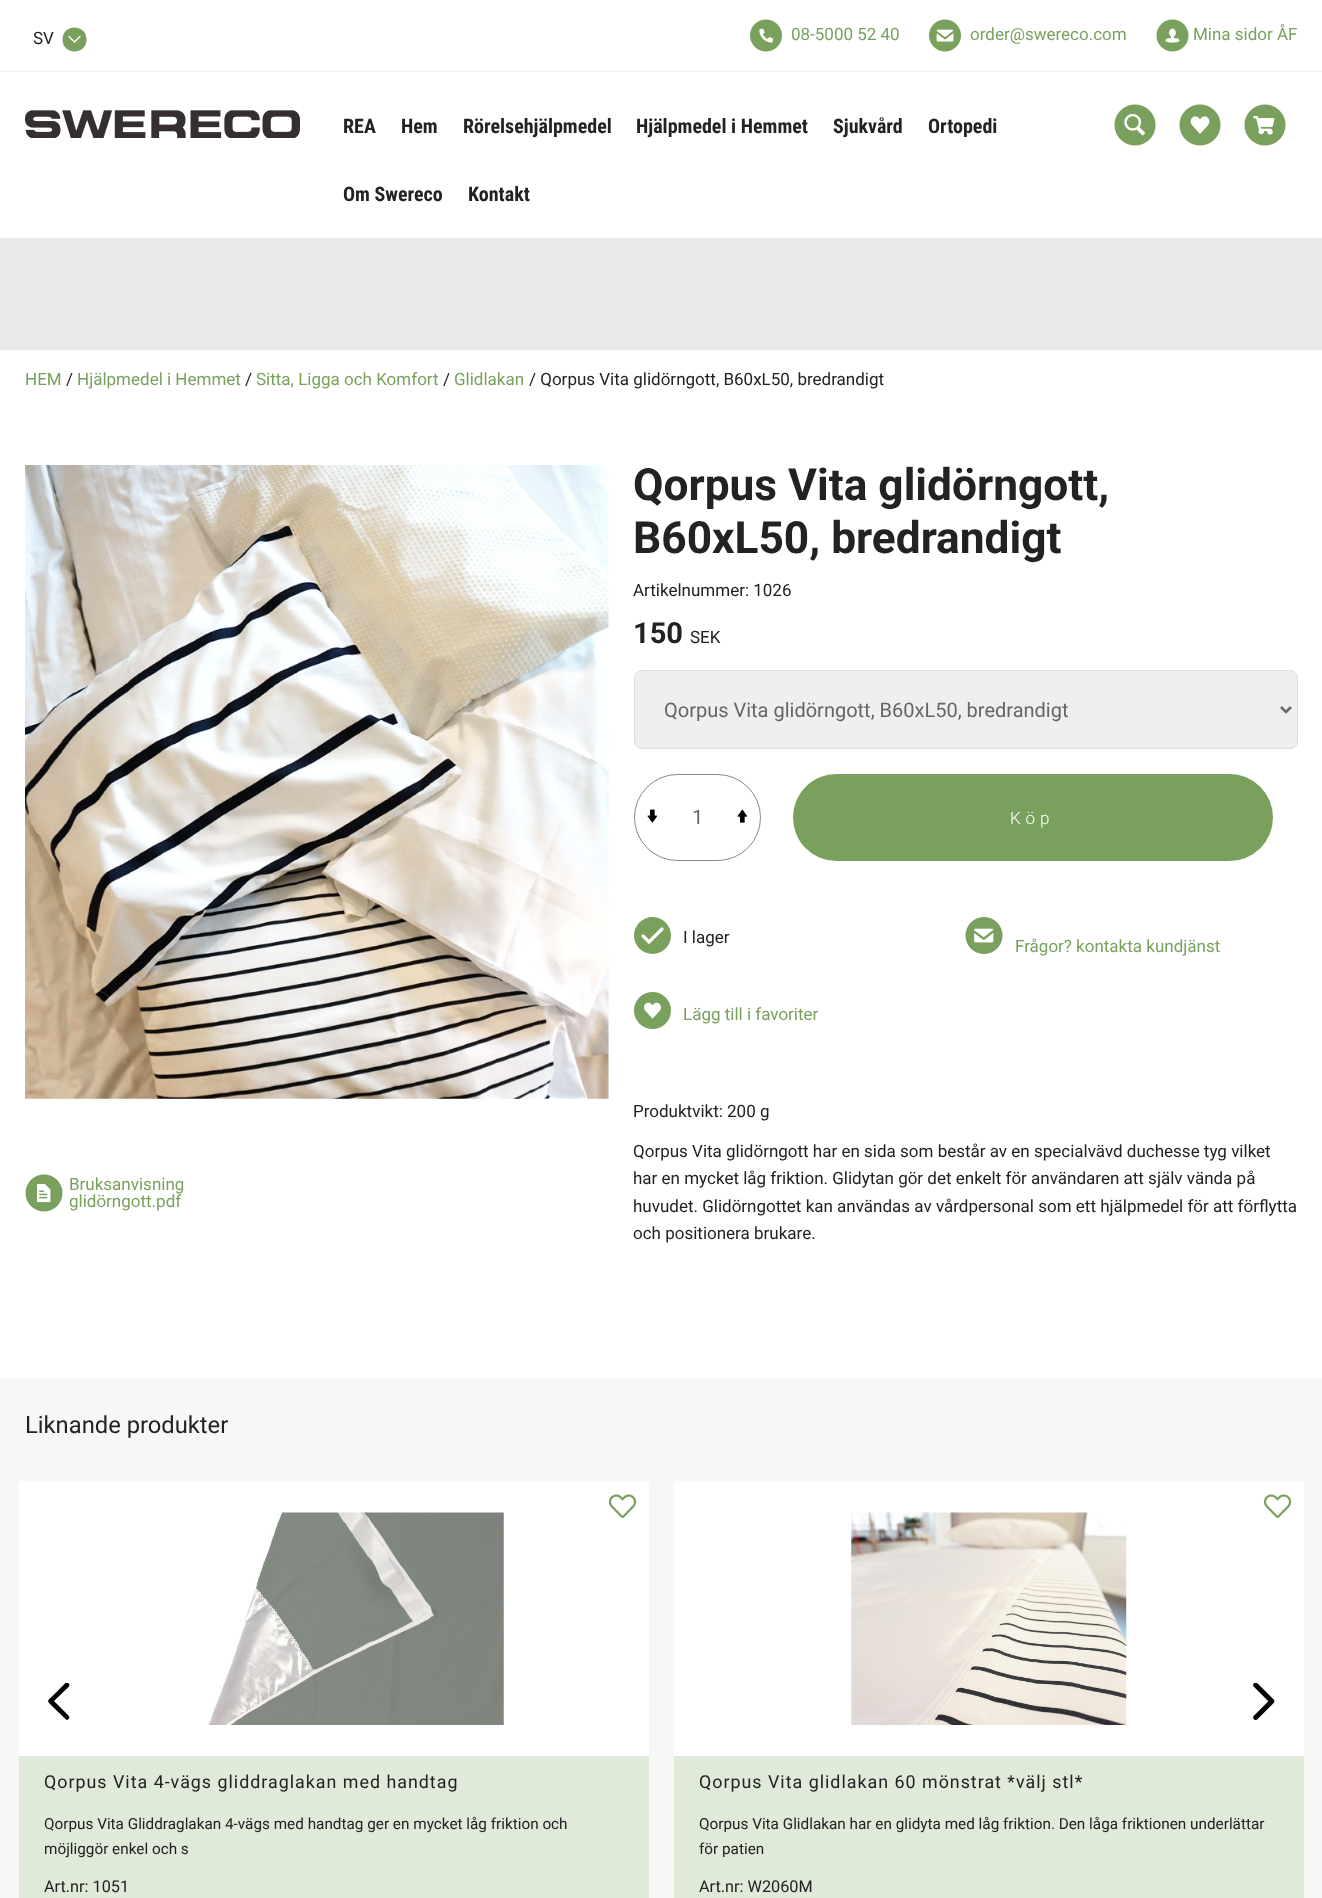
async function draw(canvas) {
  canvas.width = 1322
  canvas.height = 1898
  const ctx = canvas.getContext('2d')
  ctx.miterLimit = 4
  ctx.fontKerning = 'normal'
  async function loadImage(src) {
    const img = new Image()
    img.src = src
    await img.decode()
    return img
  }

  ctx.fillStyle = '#fff'
  ctx.fillRect(0, 0, 1322, 1898)
  ctx.fillStyle = '#eee'
  ctx.fillRect(0, 71, 1322, 1)
  ctx.fillStyle = '#fff'
  ctx.beginPath()
  ctx.ellipse(44, 39, 19, 32.5, 0, 0, 2 * Math.PI)
  ctx.fill()
  ctx.font = '17px Roboto'
  ctx.fillStyle = '#222'
  ctx.fillText('SV', 33, 44)
  ctx.fillStyle = '#7aa05d'
  ctx.beginPath()
  ctx.moveTo(86.5, 39.5)
  ctx.bezierCurveTo(86.5, 55.5, 62.5, 55.5, 62.5, 39.5)
  ctx.bezierCurveTo(62.5, 23.5, 86.5, 23.5, 86.5, 39.5)
  ctx.closePath()
  ctx.fill()
  ctx.beginPath()
  ctx.moveTo(80, 36.5)
  ctx.lineTo(74.5, 42)
  ctx.lineTo(69, 36.5)
  ctx.strokeStyle = '#fff'
  ctx.lineWidth = 1.4
  ctx.lineCap = 'round'
  ctx.stroke()
  ctx.drawImage(await loadImage('image0.png'), 750, 19, 32, 33)
  ctx.fillText('08-5000 52 40', 791, 40)
  ctx.drawImage(await loadImage('image1.png'), 929, 19, 32, 33)
  ctx.fillText('order@swereco.com', 970, 40)
  ctx.drawImage(await loadImage('image2.png'), 1156, 19, 33, 33)
  ctx.fillText('Mina sidor ÅF', 1193, 40)
  ctx.drawImage(await loadImage('image3.png'), 25, 110, 275, 28)
  ctx.font = 'bold 20px Roboto Condensed'
  ctx.fillStyle = '#222'
  ctx.fillText('REA', 343, 133)
  ctx.fillText('Hem', 401, 133)
  ctx.fillText('Rörelsehjälpmedel', 463, 133)
  ctx.fillText('Hjälpmedel i Hemmet', 636, 133)
  ctx.fillText('Sjukvård', 833, 133)
  ctx.fillText('Ortopedi', 928, 133)
  ctx.fillText('Om Swereco', 343, 201)
  ctx.fillText('Kontakt', 468, 201)
  ctx.drawImage(await loadImage('image4.png'), 1114, 104, 42, 42)
  ctx.drawImage(await loadImage('image5.png'), 1179, 104, 42, 42)
  ctx.drawImage(await loadImage('image6.png'), 1244, 104, 42, 42)
  ctx.fillStyle = '#e9e9e7'
  ctx.fillRect(0, 238, 1322, 112)
  ctx.font = '17px Roboto'
  ctx.fillStyle = '#7aa05d'
  ctx.fillText('HEM', 25, 385)
  ctx.fillStyle = '#222'
  ctx.fillText('/', 66, 385)
  ctx.fillStyle = '#7aa05d'
  ctx.fillText('Hjälpmedel i Hemmet', 77, 385)
  ctx.fillStyle = '#222'
  ctx.fillText('/', 245, 385)
  ctx.fillStyle = '#7aa05d'
  ctx.fillText('Sitta, Ligga och Komfort', 256, 385)
  ctx.fillStyle = '#222'
  ctx.fillText('/', 443, 385)
  ctx.fillStyle = '#7aa05d'
  ctx.fillText('Glidlakan', 454, 385)
  ctx.fillStyle = '#222'
  ctx.fillText('/ Qorpus Vita glidörngott, B60xL50, bredrandigt', 529, 385)
  ctx.drawImage(await loadImage('image7.png'), 25, 465, 584, 634)
  ctx.drawImage(await loadImage('image8.png'), 25, 1174, 38, 38)
  ctx.fillStyle = '#7aa05d'
  ctx.fillText('Bruksanvisning', 69, 1190)
  ctx.fillText('glidörngott.pdf', 69, 1207)
  ctx.font = 'bold 44.25px Roboto'
  ctx.fillStyle = '#222'
  ctx.fillText('Qorpus Vita glidörngott,', 633, 500)
  ctx.fillText('B60xL50, bredrandigt', 633, 553)
  ctx.font = '17px Roboto'
  ctx.fillText('Artikelnummer: 1026', 633, 596)
  ctx.font = 'bold 29px Roboto'
  ctx.fillText('150', 633, 643)
  ctx.font = '17px Roboto'
  ctx.fillText('SEK', 690, 643)
  ctx.fillStyle = '#efefef'
  ctx.beginPath()
  ctx.roundRect(634.5, 670.5, 663, 78, 7.5)
  ctx.fill()
  ctx.strokeStyle = '#ddd'
  ctx.lineWidth = 1
  ctx.stroke()
  ctx.beginPath()
  ctx.moveTo(1281, 707)
  ctx.lineTo(1286, 712)
  ctx.lineTo(1291, 707)
  ctx.strokeStyle = '#666'
  ctx.lineWidth = 2.5
  ctx.lineCap = 'butt'
  ctx.stroke()
  ctx.font = '20px Roboto'
  ctx.fillStyle = '#666'
  ctx.fillText('Qorpus Vita glidörngott, B60xL50, bredrandigt', 664, 717)
  ctx.beginPath()
  ctx.roundRect(634.5, 774.5, 126, 86, 43)
  ctx.strokeStyle = '#888'
  ctx.lineWidth = 1
  ctx.stroke()
  ctx.drawImage(await loadImage('image9.png'), 647, 809, 11, 14)
  ctx.fillText('1', 692, 824)
  ctx.drawImage(await loadImage('image10.png'), 737, 809, 11, 14)
  ctx.fillStyle = '#7aa05d'
  ctx.beginPath()
  ctx.roundRect(793, 774, 480, 87, 43.5)
  ctx.fill()
  ctx.letterSpacing = '5px'
  ctx.font = '300 17px Roboto'
  ctx.fillStyle = '#fff'
  ctx.fillText('Köp', 1010, 824)
  ctx.fillStyle = '#7aa05d'
  ctx.beginPath()
  ctx.arc(652.5, 935.5, 18.5, 0, 2 * Math.PI)
  ctx.fill()
  ctx.beginPath()
  ctx.moveTo(643, 936)
  ctx.lineTo(649, 942)
  ctx.lineTo(662, 929)
  ctx.strokeStyle = '#fff'
  ctx.lineWidth = 3.2
  ctx.lineCap = 'round'
  ctx.lineJoin = 'round'
  ctx.stroke()
  ctx.letterSpacing = '0px'
  ctx.font = '17px Roboto'
  ctx.fillStyle = '#222'
  ctx.fillText('I lager', 683, 943)
  ctx.drawImage(await loadImage('image11.png'), 965, 917, 38, 37)
  ctx.fillStyle = '#7aa05d'
  ctx.fillText('Frågor? kontakta kundjänst', 1015, 952)
  ctx.drawImage(await loadImage('image12.png'), 634, 992, 37, 37)
  ctx.fillText('Lägg till i favoriter', 683, 1020)
  ctx.fillStyle = '#222'
  ctx.fillText('Produktvikt: 200 g', 633, 1117)
  ctx.fillText('Qorpus Vita glidörngott har en sida som består av en specialvävd duchesse tyg vilket', 633, 1157)
  ctx.fillText('har en mycket låg friktion. Glidytan gör det enkelt för användaren att själv vända på', 633, 1184)
  ctx.fillText('huvudet. Glidörngottet kan användas av vårdpersonal som ett hjälpmedel för att förflytta', 633, 1212)
  ctx.fillText('och positionera brukare.', 633, 1239)
  ctx.fillStyle = '#f7f7f5'
  ctx.fillRect(0, 1379, 1322, 519)
  ctx.font = '23.75px Roboto'
  ctx.fillStyle = '#222'
  ctx.fillText('Liknande produkter', 25, 1433)
  ctx.fillStyle = '#fff'
  ctx.fillRect(19, 1481, 630, 275)
  ctx.save()
  ctx.beginPath()
  ctx.rect(40, 1683, 38, 37)
  ctx.clip()
  ctx.fillStyle = '#000'
  ctx.beginPath()
  ctx.moveTo(65, 1683.5)
  ctx.bezierCurveTo(67, 1681, 70.5, 1684, 69, 1686.5)
  ctx.lineTo(54, 1701)
  ctx.lineTo(69, 1716)
  ctx.bezierCurveTo(70, 1718, 68, 1720.5, 66, 1719.5)
  ctx.lineTo(52, 1706)
  ctx.bezierCurveTo(46.5, 1700.5, 47, 1701, 52.5, 1696)
  ctx.closePath()
  ctx.fill()
  ctx.restore()
  ctx.fillRect(674, 1481, 630, 275)
  ctx.drawImage(await loadImage('image13.png'), 1253, 1683, 22, 37)
  ctx.drawImage(await loadImage('image14.png'), 608, 1494, 29, 24)
  ctx.drawImage(await loadImage('image15.png'), 208, 1512, 296, 213)
  ctx.fillStyle = '#dfead9'
  ctx.fillRect(19, 1756, 630, 142)
  ctx.letterSpacing = '1px'
  ctx.font = '17.85px Roboto'
  ctx.fillStyle = '#222'
  ctx.fillText('Qorpus Vita 4-vägs gliddraglakan med handtag', 44, 1788)
  ctx.letterSpacing = '0px'
  ctx.font = '15.3px Roboto'
  ctx.fillText('Qorpus Vita Gliddraglakan 4-vägs med handtag ger en mycket låg friktion och', 44, 1829)
  ctx.fillText('möjliggör enkel och s', 44, 1854)
  ctx.font = '16.25px Roboto'
  ctx.fillText('Art.nr: 1051', 44, 1892)
  ctx.drawImage(await loadImage('image14.png'), 1263, 1494, 29, 24)
  ctx.drawImage(await loadImage('image16.png'), 851, 1512, 276, 213)
  ctx.fillStyle = '#dfead9'
  ctx.fillRect(674, 1756, 630, 142)
  ctx.letterSpacing = '1px'
  ctx.font = '17.85px Roboto'
  ctx.fillStyle = '#222'
  ctx.fillText('Qorpus Vita glidlakan 60 mönstrat *välj stl*', 699, 1788)
  ctx.letterSpacing = '0px'
  ctx.font = '15.3px Roboto'
  ctx.fillText('Qorpus Vita Glidlakan har en glidyta med låg friktion. Den låga friktionen underlättar', 699, 1829)
  ctx.fillText('för patien', 699, 1854)
  ctx.font = '16.25px Roboto'
  ctx.fillText('Art.nr: W2060M', 699, 1892)
}

draw(document.querySelector('canvas'))
